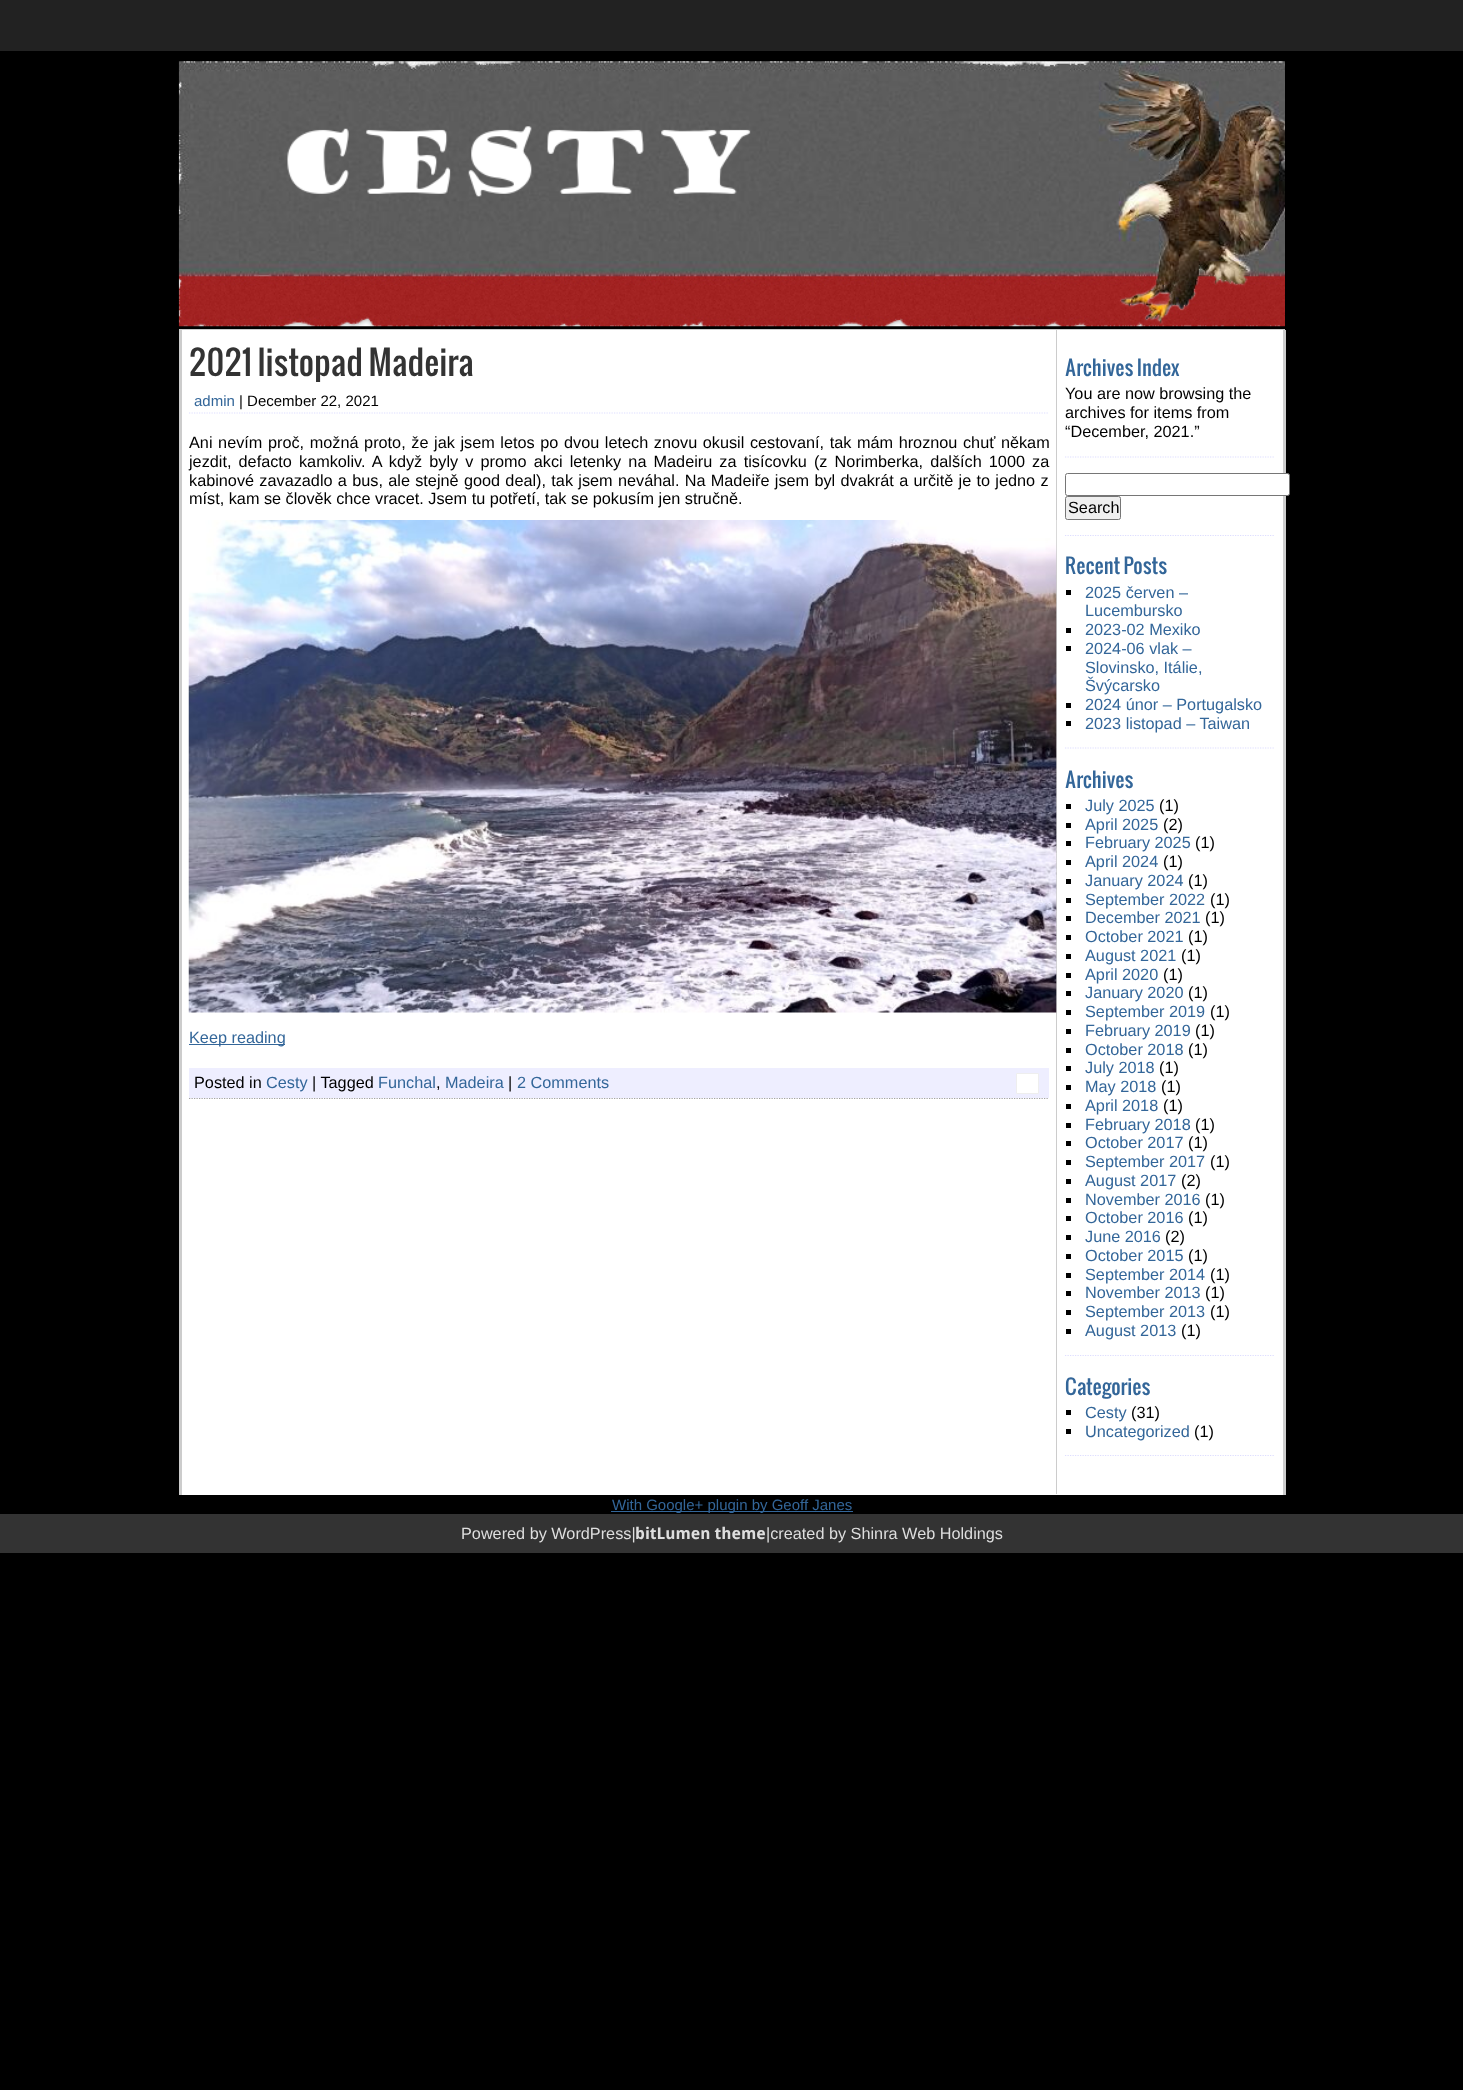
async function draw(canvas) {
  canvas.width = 1463
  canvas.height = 2090
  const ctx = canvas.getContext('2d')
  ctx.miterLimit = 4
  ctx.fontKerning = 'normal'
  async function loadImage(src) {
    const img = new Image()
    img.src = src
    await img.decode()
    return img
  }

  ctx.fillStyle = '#000'
  ctx.fillRect(0, 0, 1463, 2090)
  ctx.fillStyle = '#222'
  ctx.fillRect(0, 0, 1463, 51)
  ctx.fillStyle = '#ccc'
  ctx.fillRect(179, 329, 1106, 1)
  ctx.drawImage(await loadImage('image0.png'), 178, 61, 1107, 266)
  ctx.fillStyle = '#fff'
  ctx.fillRect(182, 330, 1101, 1165)
  ctx.fillStyle = '#ccc'
  ctx.fillRect(1283, 330, 3, 1165)
  ctx.fillRect(179, 330, 3, 1165)
  ctx.beginPath()
  ctx.moveTo(189, 1098)
  ctx.lineTo(1049, 1098)
  ctx.strokeStyle = '#444'
  ctx.lineWidth = 1.2
  ctx.setLineDash([1.25, 1.25])
  ctx.stroke()
  ctx.font = '32.5px Oswald'
  ctx.fillStyle = '#333'
  ctx.fillText('2021 listopad Madeira', 189, 376)
  ctx.beginPath()
  ctx.moveTo(189, 413)
  ctx.lineTo(1049, 413)
  ctx.strokeStyle = '#ddf'
  ctx.stroke()
  ctx.font = '15px Liberation Sans'
  ctx.fillStyle = '#369'
  ctx.fillText('admin', 194, 406)
  ctx.fillStyle = '#000'
  ctx.fillText('| December 22, 2021', 239, 406)
  ctx.wordSpacing = '1.1px'
  ctx.font = '16.25px Liberation Sans'
  ctx.fillText('Ani nevím proč, možná proto, že jak jsem letos po dvou letech znovu okusil cestovaní, tak mám hroznou chuť někam', 189, 448)
  ctx.wordSpacing = '2.6px'
  ctx.fillText('jezdit, defacto kamkoliv. A když byly v promo akci letenky na Madeiru za tisícovku (z Norimberka, dalších 1000 za', 189, 467)
  ctx.wordSpacing = '0.8px'
  ctx.fillText('kabinové zavazadlo a bus, ale stejně good deal), tak jsem neváhal. Na Madeiře jsem byl dvakrát a určitě je to jedno z', 189, 486)
  ctx.wordSpacing = '0px'
  ctx.fillText('míst, kam se člověk chce vracet. Jsem tu potřetí, tak se pokusím jen stručně.', 189, 504)
  ctx.fillStyle = '#ccc'
  ctx.fillRect(1056, 330, 1, 1164)
  ctx.drawImage(await loadImage('image1.png'), 188, 520, 869, 493)
  ctx.fillStyle = '#369'
  ctx.fillRect(189, 1044, 96, 1)
  ctx.fillText('Keep reading', 189, 1043)
  ctx.fillStyle = '#eef'
  ctx.fillRect(189, 1068, 860, 30)
  ctx.fillStyle = '#000'
  ctx.fillText('Posted in', 194, 1088)
  ctx.fillStyle = '#369'
  ctx.fillText('Cesty', 266, 1088)
  ctx.fillStyle = '#000'
  ctx.fillText('| Tagged', 312, 1088)
  ctx.fillStyle = '#369'
  ctx.fillText('Funchal', 378, 1088)
  ctx.fillStyle = '#000'
  ctx.fillText(',', 436, 1088)
  ctx.fillStyle = '#369'
  ctx.fillText('Madeira', 445, 1088)
  ctx.fillStyle = '#000'
  ctx.fillText('|', 508, 1088)
  ctx.fillStyle = '#369'
  ctx.fillText('2 Comments', 517, 1088)
  ctx.fillStyle = '#fff'
  ctx.beginPath()
  ctx.rect(1016.5, 1073.5, 22, 20)
  ctx.fill()
  ctx.strokeStyle = '#eee'
  ctx.lineWidth = 1
  ctx.setLineDash([])
  ctx.stroke()
  ctx.beginPath()
  ctx.moveTo(1065, 457)
  ctx.lineTo(1275, 457)
  ctx.strokeStyle = '#ddf'
  ctx.lineWidth = 1.2
  ctx.setLineDash([1.25, 1.25])
  ctx.stroke()
  ctx.font = '20px Oswald'
  ctx.fillStyle = '#369'
  ctx.fillText('Archives Index', 1065, 376)
  ctx.font = '16.25px Liberation Sans'
  ctx.fillStyle = '#000'
  ctx.fillText('You are now browsing the', 1065, 399)
  ctx.fillText('archives for items from', 1065, 418)
  ctx.fillText('“December, 2021.”', 1065, 437)
  ctx.beginPath()
  ctx.moveTo(1065, 535.5)
  ctx.lineTo(1275, 535.5)
  ctx.stroke()
  ctx.fillStyle = '#fff'
  ctx.beginPath()
  ctx.roundRect(1065.5, 473.5, 224, 22, 2)
  ctx.fill()
  ctx.strokeStyle = '#767676'
  ctx.lineWidth = 1
  ctx.setLineDash([])
  ctx.stroke()
  ctx.fillStyle = '#efefef'
  ctx.beginPath()
  ctx.roundRect(1065.5, 496.5, 55, 23, 2)
  ctx.fill()
  ctx.stroke()
  ctx.fillStyle = '#000'
  ctx.fillText('Search', 1068, 513)
  ctx.beginPath()
  ctx.moveTo(1065, 748)
  ctx.lineTo(1275, 748)
  ctx.strokeStyle = '#ddf'
  ctx.lineWidth = 1.2
  ctx.setLineDash([1.25, 1.25])
  ctx.stroke()
  ctx.font = '20px Oswald'
  ctx.fillStyle = '#369'
  ctx.fillText('Recent Posts', 1065, 574)
  ctx.fillStyle = '#000'
  ctx.fillRect(1066, 590, 5, 5)
  ctx.font = '16.25px Liberation Sans'
  ctx.fillStyle = '#369'
  ctx.fillText('2025 červen –', 1085, 598)
  ctx.fillText('Lucembursko', 1085, 616)
  ctx.fillStyle = '#000'
  ctx.fillRect(1066, 628, 5, 5)
  ctx.fillStyle = '#369'
  ctx.fillText('2023-02 Mexiko', 1085, 635)
  ctx.fillStyle = '#000'
  ctx.fillRect(1066, 646, 5, 5)
  ctx.fillStyle = '#369'
  ctx.fillText('2024-06 vlak –', 1085, 654)
  ctx.fillText('Slovinsko, Itálie,', 1085, 673)
  ctx.fillText('Švýcarsko', 1085, 691)
  ctx.fillStyle = '#000'
  ctx.fillRect(1066, 703, 5, 5)
  ctx.fillStyle = '#369'
  ctx.fillText('2024 únor – Portugalsko', 1085, 710)
  ctx.fillStyle = '#000'
  ctx.fillRect(1066, 721, 5, 5)
  ctx.fillStyle = '#369'
  ctx.fillText('2023 listopad – Taiwan', 1085, 729)
  ctx.beginPath()
  ctx.moveTo(1065, 1355.5)
  ctx.lineTo(1275, 1355.5)
  ctx.stroke()
  ctx.font = '20px Oswald'
  ctx.fillText('Archives', 1065, 788)
  ctx.fillStyle = '#000'
  ctx.fillRect(1066, 804, 5, 5)
  ctx.font = '16.25px Liberation Sans'
  ctx.fillStyle = '#369'
  ctx.fillText('July 2025', 1085, 811)
  ctx.fillStyle = '#000'
  ctx.fillText('(1)', 1159, 811)
  ctx.fillRect(1066, 823, 5, 5)
  ctx.fillStyle = '#369'
  ctx.fillText('April 2025', 1085, 830)
  ctx.fillStyle = '#000'
  ctx.fillText('(2)', 1163, 830)
  ctx.fillRect(1066, 841, 5, 5)
  ctx.fillStyle = '#369'
  ctx.fillText('February 2025', 1085, 848)
  ctx.fillStyle = '#000'
  ctx.fillText('(1)', 1195, 848)
  ctx.fillRect(1066, 860, 5, 5)
  ctx.fillStyle = '#369'
  ctx.fillText('April 2024', 1085, 867)
  ctx.fillStyle = '#000'
  ctx.fillText('(1)', 1163, 867)
  ctx.fillRect(1066, 879, 5, 5)
  ctx.fillStyle = '#369'
  ctx.fillText('January 2024', 1085, 886)
  ctx.fillStyle = '#000'
  ctx.fillText('(1)', 1188, 886)
  ctx.fillRect(1066, 898, 5, 5)
  ctx.fillStyle = '#369'
  ctx.fillText('September 2022', 1085, 905)
  ctx.fillStyle = '#000'
  ctx.fillText('(1)', 1210, 905)
  ctx.fillRect(1066, 916, 5, 5)
  ctx.fillStyle = '#369'
  ctx.fillText('December 2021', 1085, 923)
  ctx.fillStyle = '#000'
  ctx.fillText('(1)', 1205, 923)
  ctx.fillRect(1066, 935, 5, 5)
  ctx.fillStyle = '#369'
  ctx.fillText('October 2021', 1085, 942)
  ctx.fillStyle = '#000'
  ctx.fillText('(1)', 1188, 942)
  ctx.fillRect(1066, 954, 5, 5)
  ctx.fillStyle = '#369'
  ctx.fillText('August 2021', 1085, 961)
  ctx.fillStyle = '#000'
  ctx.fillText('(1)', 1181, 961)
  ctx.fillRect(1066, 973, 5, 5)
  ctx.fillStyle = '#369'
  ctx.fillText('April 2020', 1085, 980)
  ctx.fillStyle = '#000'
  ctx.fillText('(1)', 1163, 980)
  ctx.fillRect(1066, 991, 5, 5)
  ctx.fillStyle = '#369'
  ctx.fillText('January 2020', 1085, 998)
  ctx.fillStyle = '#000'
  ctx.fillText('(1)', 1188, 998)
  ctx.fillRect(1066, 1010, 5, 5)
  ctx.fillStyle = '#369'
  ctx.fillText('September 2019', 1085, 1017)
  ctx.fillStyle = '#000'
  ctx.fillText('(1)', 1210, 1017)
  ctx.fillRect(1066, 1029, 5, 5)
  ctx.fillStyle = '#369'
  ctx.fillText('February 2019', 1085, 1036)
  ctx.fillStyle = '#000'
  ctx.fillText('(1)', 1195, 1036)
  ctx.fillRect(1066, 1048, 5, 5)
  ctx.fillStyle = '#369'
  ctx.fillText('October 2018', 1085, 1055)
  ctx.fillStyle = '#000'
  ctx.fillText('(1)', 1188, 1055)
  ctx.fillRect(1066, 1066, 5, 5)
  ctx.fillStyle = '#369'
  ctx.fillText('July 2018', 1085, 1073)
  ctx.fillStyle = '#000'
  ctx.fillText('(1)', 1159, 1073)
  ctx.fillRect(1066, 1085, 5, 5)
  ctx.fillStyle = '#369'
  ctx.fillText('May 2018', 1085, 1092)
  ctx.fillStyle = '#000'
  ctx.fillText('(1)', 1161, 1092)
  ctx.fillRect(1066, 1104, 5, 5)
  ctx.fillStyle = '#369'
  ctx.fillText('April 2018', 1085, 1111)
  ctx.fillStyle = '#000'
  ctx.fillText('(1)', 1163, 1111)
  ctx.fillRect(1066, 1123, 5, 5)
  ctx.fillStyle = '#369'
  ctx.fillText('February 2018', 1085, 1130)
  ctx.fillStyle = '#000'
  ctx.fillText('(1)', 1195, 1130)
  ctx.fillRect(1066, 1141, 5, 5)
  ctx.fillStyle = '#369'
  ctx.fillText('October 2017', 1085, 1148)
  ctx.fillStyle = '#000'
  ctx.fillText('(1)', 1188, 1148)
  ctx.fillRect(1066, 1160, 5, 5)
  ctx.fillStyle = '#369'
  ctx.fillText('September 2017', 1085, 1167)
  ctx.fillStyle = '#000'
  ctx.fillText('(1)', 1210, 1167)
  ctx.fillRect(1066, 1179, 5, 5)
  ctx.fillStyle = '#369'
  ctx.fillText('August 2017', 1085, 1186)
  ctx.fillStyle = '#000'
  ctx.fillText('(2)', 1181, 1186)
  ctx.fillRect(1066, 1198, 5, 5)
  ctx.fillStyle = '#369'
  ctx.fillText('November 2016', 1085, 1205)
  ctx.fillStyle = '#000'
  ctx.fillText('(1)', 1205, 1205)
  ctx.fillRect(1066, 1216, 5, 5)
  ctx.fillStyle = '#369'
  ctx.fillText('October 2016', 1085, 1223)
  ctx.fillStyle = '#000'
  ctx.fillText('(1)', 1188, 1223)
  ctx.fillRect(1066, 1235, 5, 5)
  ctx.fillStyle = '#369'
  ctx.fillText('June 2016', 1085, 1242)
  ctx.fillStyle = '#000'
  ctx.fillText('(2)', 1165, 1242)
  ctx.fillRect(1066, 1254, 5, 5)
  ctx.fillStyle = '#369'
  ctx.fillText('October 2015', 1085, 1261)
  ctx.fillStyle = '#000'
  ctx.fillText('(1)', 1188, 1261)
  ctx.fillRect(1066, 1273, 5, 5)
  ctx.fillStyle = '#369'
  ctx.fillText('September 2014', 1085, 1280)
  ctx.fillStyle = '#000'
  ctx.fillText('(1)', 1210, 1280)
  ctx.fillRect(1066, 1291, 5, 5)
  ctx.fillStyle = '#369'
  ctx.fillText('November 2013', 1085, 1298)
  ctx.fillStyle = '#000'
  ctx.fillText('(1)', 1205, 1298)
  ctx.fillRect(1066, 1310, 5, 5)
  ctx.fillStyle = '#369'
  ctx.fillText('September 2013', 1085, 1317)
  ctx.fillStyle = '#000'
  ctx.fillText('(1)', 1210, 1317)
  ctx.fillRect(1066, 1329, 5, 5)
  ctx.fillStyle = '#369'
  ctx.fillText('August 2013', 1085, 1336)
  ctx.fillStyle = '#000'
  ctx.fillText('(1)', 1181, 1336)
  ctx.beginPath()
  ctx.moveTo(1065, 1455.5)
  ctx.lineTo(1275, 1455.5)
  ctx.stroke()
  ctx.font = '20px Oswald'
  ctx.fillStyle = '#369'
  ctx.fillText('Categories', 1065, 1395)
  ctx.fillStyle = '#000'
  ctx.fillRect(1066, 1410, 5, 5)
  ctx.font = '16.25px Liberation Sans'
  ctx.fillStyle = '#369'
  ctx.fillText('Cesty', 1085, 1418)
  ctx.fillStyle = '#000'
  ctx.fillText('(31)', 1131, 1418)
  ctx.fillRect(1066, 1429, 5, 5)
  ctx.fillStyle = '#369'
  ctx.fillText('Uncategorized', 1085, 1437)
  ctx.fillStyle = '#000'
  ctx.fillText('(1)', 1194, 1437)
  ctx.fillStyle = '#369'
  ctx.fillRect(611, 1511, 242, 1)
  ctx.font = '15px Liberation Sans'
  ctx.fillText('With Google+ plugin by Geoff Janes', 612, 1510)
  ctx.fillStyle = '#333'
  ctx.fillRect(0, 1514, 1463, 39)
  ctx.font = '16.25px Liberation Sans'
  ctx.fillStyle = '#dedede'
  ctx.fillText('Powered by WordPress|', 461, 1539)
  ctx.font = 'bold 16.25px Droid Sans'
  ctx.fillText('bitLumen theme', 635, 1539)
  ctx.font = '16.25px Liberation Sans'
  ctx.fillText('|created by Shinra Web Holdings', 766, 1539)
}

draw(document.querySelector('canvas'))
